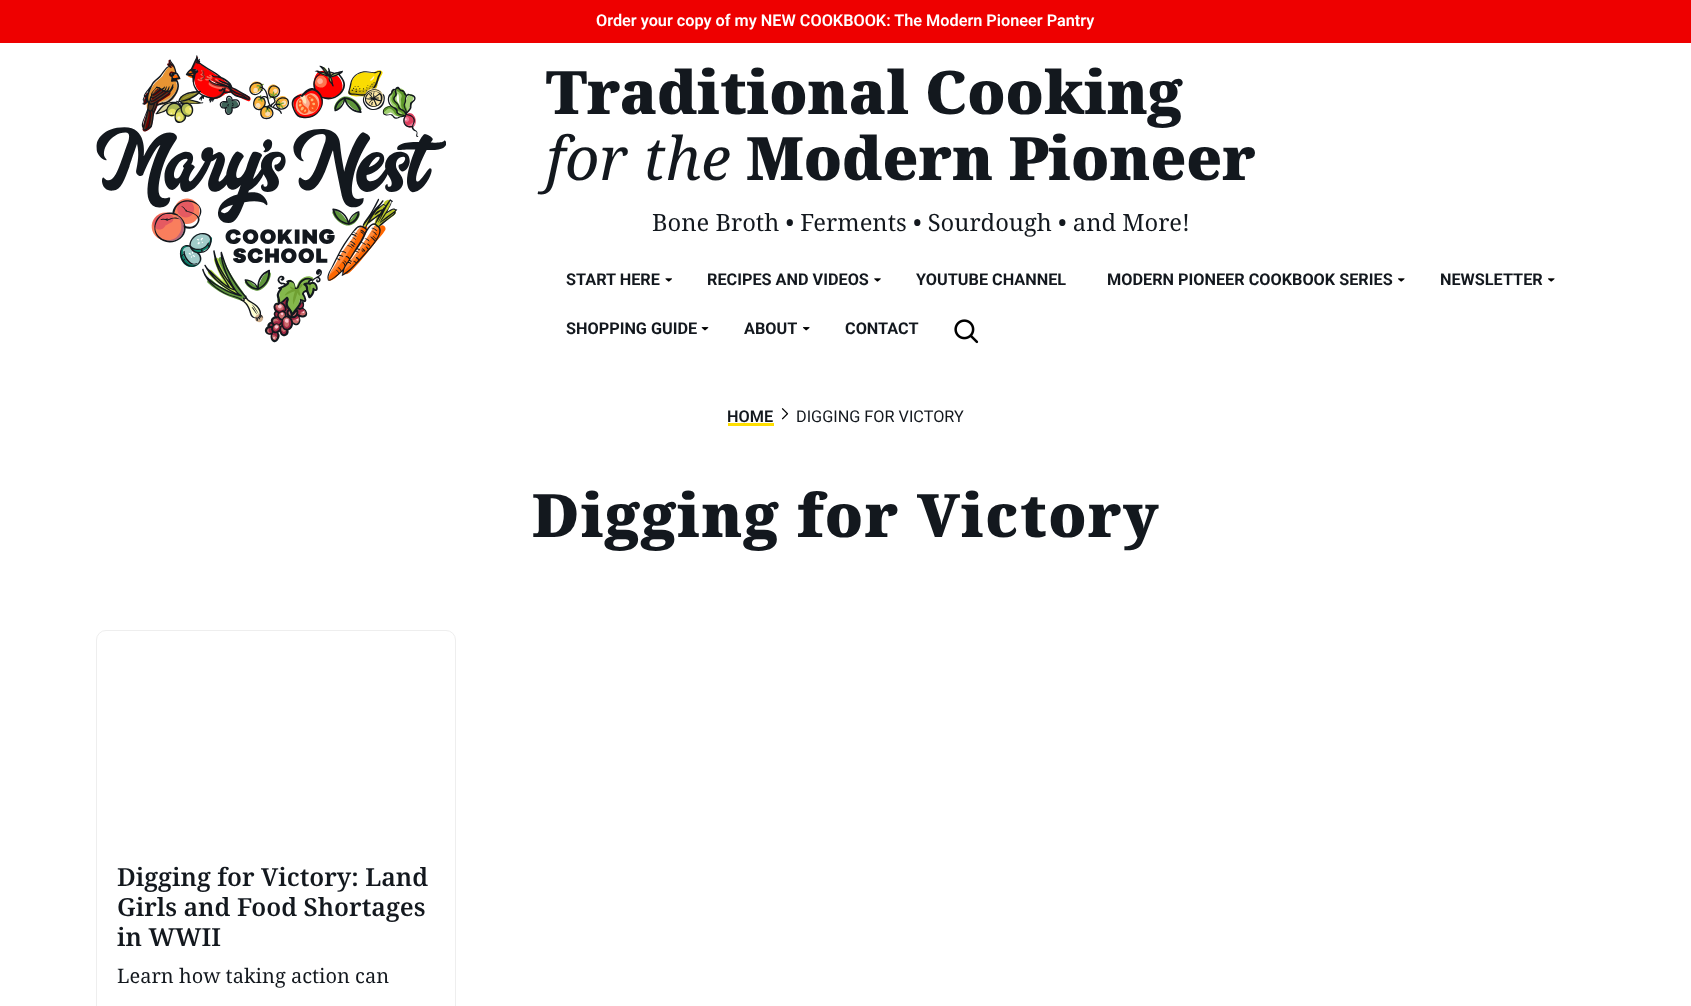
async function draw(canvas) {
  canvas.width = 1691
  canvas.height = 1006
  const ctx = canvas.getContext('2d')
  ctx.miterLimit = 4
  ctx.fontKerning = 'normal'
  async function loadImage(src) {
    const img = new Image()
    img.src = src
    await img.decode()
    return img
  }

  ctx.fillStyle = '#fff'
  ctx.fillRect(0, 0, 1691, 1006)
  ctx.fillStyle = '#e00'
  ctx.fillRect(0, 0, 1691, 43)
  ctx.font = '600 16.25px Roboto'
  ctx.fillStyle = '#fff'
  ctx.fillText('Order your copy of my NEW COOKBOOK: The Modern Pioneer Pantry', 596, 26)
  ctx.drawImage(await loadImage('image0.png'), 96, 55, 350, 288)
  ctx.font = '900 60px Noto Serif'
  ctx.fillStyle = '#13181e'
  ctx.fillText('Traditional Cooking', 546, 114)
  ctx.font = 'italic 60px Noto Serif'
  ctx.fillText('for the', 546, 180)
  ctx.font = '900 60px Noto Serif'
  ctx.fillText('Modern Pioneer', 746, 180)
  ctx.font = '23.75px Noto Serif'
  ctx.fillText('Bone Broth • Ferments • Sourdough • and More!', 652, 231)
  ctx.font = 'bold 16.25px Roboto'
  ctx.fillText('START HERE', 566, 285)
  ctx.drawImage(await loadImage('image1.png'), 665, 278, 7, 4)
  ctx.fillText('RECIPES AND VIDEOS', 707, 285)
  ctx.drawImage(await loadImage('image2.png'), 874, 278, 7, 4)
  ctx.fillText('YOUTUBE CHANNEL', 916, 285)
  ctx.fillText('MODERN PIONEER COOKBOOK SERIES', 1107, 285)
  ctx.drawImage(await loadImage('image3.png'), 1398, 278, 7, 4)
  ctx.fillText('NEWSLETTER', 1440, 285)
  ctx.drawImage(await loadImage('image3.png'), 1548, 278, 7, 4)
  ctx.fillText('SHOPPING GUIDE', 566, 334)
  ctx.drawImage(await loadImage('image4.png'), 701, 327, 8, 4)
  ctx.fillText('ABOUT', 744, 334)
  ctx.drawImage(await loadImage('image5.png'), 803, 327, 7, 4)
  ctx.fillText('CONTACT', 845, 334)
  ctx.drawImage(await loadImage('image6.png'), 954, 319, 25, 25)
  ctx.font = '600 16.25px Roboto'
  ctx.fillText('HOME', 727, 422)
  ctx.fillStyle = '#ffdf00'
  ctx.fillRect(728, 423, 46, 3)
  ctx.drawImage(await loadImage('image7.png'), 781, 408, 8, 12)
  ctx.font = '16.25px Roboto'
  ctx.fillStyle = '#13181e'
  ctx.fillText('DIGGING FOR VICTORY', 796, 422)
  ctx.letterSpacing = '1.5px'
  ctx.font = '900 60px Noto Serif'
  ctx.fillText('Digging for Victory', 532, 537)
  ctx.beginPath()
  ctx.roundRect(96.5, 630.5, 359, 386, 9.5)
  ctx.strokeStyle = '#eee'
  ctx.stroke()
  ctx.letterSpacing = '0px'
  ctx.font = '600 25px Noto Serif'
  ctx.fillText('Digging for Victory: Land', 117, 886)
  ctx.fillText('Girls and Food Shortages', 117, 916)
  ctx.fillText('in WWII', 117, 946)
  ctx.font = '20px Noto Serif'
  ctx.fillText('Learn how taking action can', 117, 983)
}

draw(document.querySelector('canvas'))
